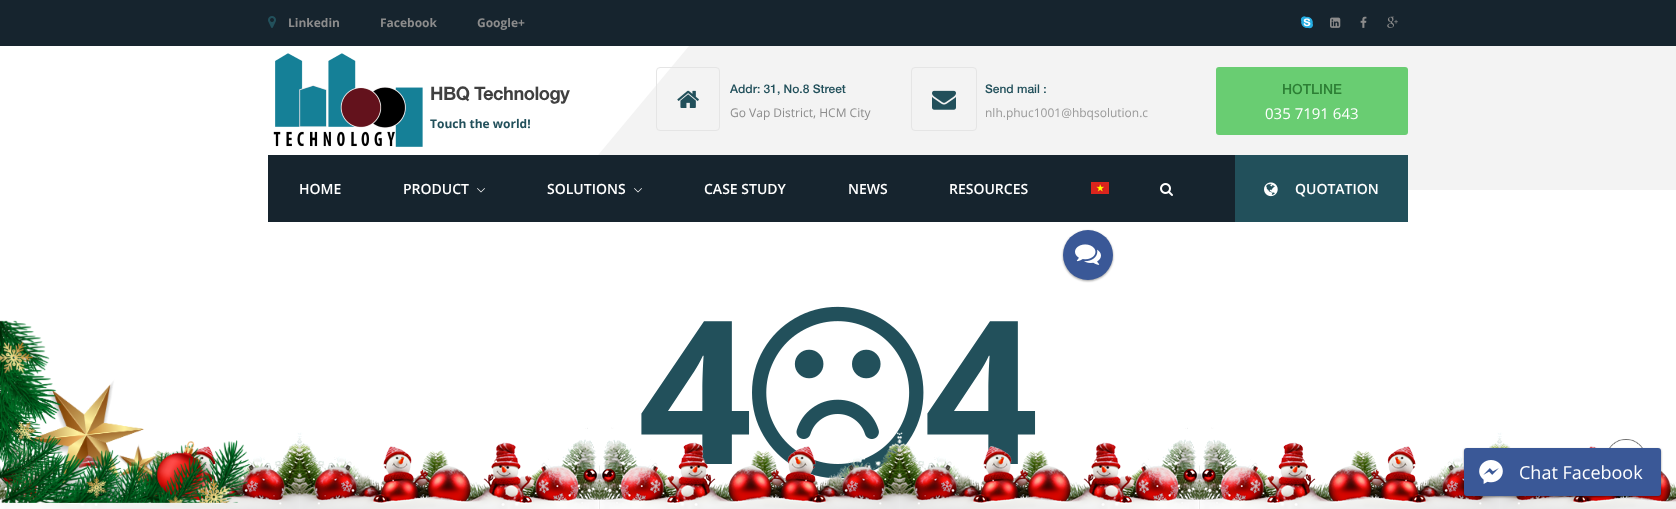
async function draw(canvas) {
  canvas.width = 1676
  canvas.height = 509
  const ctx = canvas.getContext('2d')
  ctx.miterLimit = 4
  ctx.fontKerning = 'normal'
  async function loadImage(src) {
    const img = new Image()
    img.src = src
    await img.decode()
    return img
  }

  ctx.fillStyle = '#fff'
  ctx.fillRect(0, 0, 1676, 509)
  ctx.font = 'bold 200px Open Sans'
  ctx.fillStyle = '#22505b'
  ctx.fillText('4', 638, 464)
  ctx.drawImage(await loadImage('image13.png'), 752, 306, 172, 173)
  ctx.fillText('4', 924, 464)
  ctx.drawImage(await loadImage('image14.png'), 1609, 439, 34, 9)
  ctx.drawImage(await loadImage('image15.png'), 0, 427, 1676, 82)
  ctx.drawImage(await loadImage('image0.png'), 0, 320, 251, 183)
  ctx.fillStyle = '#16242e'
  ctx.fillRect(0, 0, 1676, 46)
  ctx.drawImage(await loadImage('image1.png'), 268, 16, 8, 12)
  ctx.font = 'bold 12px Open Sans'
  ctx.fillStyle = '#8c8c8c'
  ctx.fillText('Linkedin', 288, 27)
  ctx.fillText('Facebook', 380, 27)
  ctx.fillText('Google+', 477, 27)
  ctx.drawImage(await loadImage('image2.png'), 1301, 16, 12, 13)
  ctx.drawImage(await loadImage('image3.png'), 1330, 17, 11, 11)
  ctx.drawImage(await loadImage('image4.png'), 1360, 16, 7, 12)
  ctx.drawImage(await loadImage('image5.png'), 1387, 16, 11, 12)
  ctx.fillStyle = '#f3f3f3'
  ctx.fillRect(598, 46, 1078, 144)
  ctx.drawImage(await loadImage('image6.png'), 273, 53, 150, 94)
  ctx.fillStyle = '#fff'
  ctx.beginPath()
  ctx.moveTo(569, 46)
  ctx.lineTo(689, 46)
  ctx.lineTo(569, 190)
  ctx.closePath()
  ctx.fill()
  ctx.font = 'bold 18px Helvetica Neue'
  ctx.fillStyle = '#404040'
  ctx.fillText('HBQ Technology', 430, 100)
  ctx.font = 'bold 12px Open Sans'
  ctx.fillStyle = '#22505b'
  ctx.fillText('Touch the world!', 430, 128)
  ctx.beginPath()
  ctx.roundRect(656.5, 67.5, 63, 63, 3.5)
  ctx.strokeStyle = '#e5e5e5'
  ctx.stroke()
  ctx.drawImage(await loadImage('image7.png'), 677, 90, 22, 18)
  ctx.font = '500 12px Helvetica Neue'
  ctx.fillText('Addr: 31, No.8 Street', 730, 93)
  ctx.font = '12px Open Sans'
  ctx.fillStyle = '#8c8c8c'
  ctx.fillText('Go Vap District, HCM City', 730, 117)
  ctx.beginPath()
  ctx.roundRect(911.5, 67.5, 65, 63, 3.5)
  ctx.stroke()
  ctx.drawImage(await loadImage('image8.png'), 932, 90, 24, 20)
  ctx.font = '500 12px Helvetica Neue'
  ctx.fillStyle = '#22505b'
  ctx.fillText('Send mail :', 985, 93)
  ctx.font = '12px Open Sans'
  ctx.fillStyle = '#999'
  ctx.fillText('nlh.phuc1001@hbqsolution.c', 985, 117)
  ctx.fillStyle = '#69cd72'
  ctx.beginPath()
  ctx.roundRect(1216, 67, 192, 68, 3)
  ctx.fill()
  ctx.font = '500 14px Helvetica Neue'
  ctx.fillStyle = '#2d7f35'
  ctx.fillText('HOTLINE', 1282, 94)
  ctx.font = '15px Open Sans'
  ctx.fillStyle = '#fff'
  ctx.fillText('035 7191 643', 1265, 119)
  ctx.fillStyle = '#16242e'
  ctx.fillRect(268, 155, 967, 67)
  ctx.font = '600 14px Open Sans'
  ctx.fillStyle = '#fff'
  ctx.fillText('HOME', 299, 194)
  ctx.fillText('PRODUCT', 403, 194)
  ctx.drawImage(await loadImage('image9.png'), 477, 188, 8, 5)
  ctx.fillText('SOLUTIONS', 547, 194)
  ctx.drawImage(await loadImage('image9.png'), 634, 188, 8, 5)
  ctx.fillText('CASE STUDY', 704, 194)
  ctx.fillText('NEWS', 848, 194)
  ctx.fillText('RESOURCES', 949, 194)
  ctx.drawImage(await loadImage('image10.png'), 1091, 182, 18, 12)
  ctx.drawImage(await loadImage('image11.png'), 1160, 183, 13, 13)
  ctx.fillStyle = '#22505b'
  ctx.fillRect(1235, 155, 173, 67)
  ctx.drawImage(await loadImage('image12.png'), 1264, 182, 14, 15)
  ctx.fillStyle = '#fff'
  ctx.fillText('QUOTATION', 1295, 194)
  ctx.fillStyle = '#00000066'
  ctx.filter = 'blur(1px)'
  ctx.beginPath()
  ctx.roundRect(1063, 231, 50, 50, 25)
  ctx.fill()
  ctx.filter = 'none'
  ctx.fillStyle = '#3a5897'
  ctx.beginPath()
  ctx.arc(1088, 255, 25, 0, 2 * Math.PI)
  ctx.fill()
  ctx.drawImage(await loadImage('image16.png'), 1075, 244, 26, 21)
  ctx.fillStyle = '#00000066'
  ctx.filter = 'blur(1px)'
  ctx.beginPath()
  ctx.roundRect(1464, 449, 197, 48, 3)
  ctx.fill()
  ctx.filter = 'none'
  ctx.fillStyle = '#3a5897'
  ctx.beginPath()
  ctx.roundRect(1464, 448, 197, 48, 3)
  ctx.fill()
  ctx.drawImage(await loadImage('image17.png'), 1479, 460, 24, 24)
  ctx.font = '18px Open Sans'
  ctx.fillStyle = '#fff'
  ctx.fillText('Chat Facebook', 1519, 479)
}

draw(document.querySelector('canvas'))
